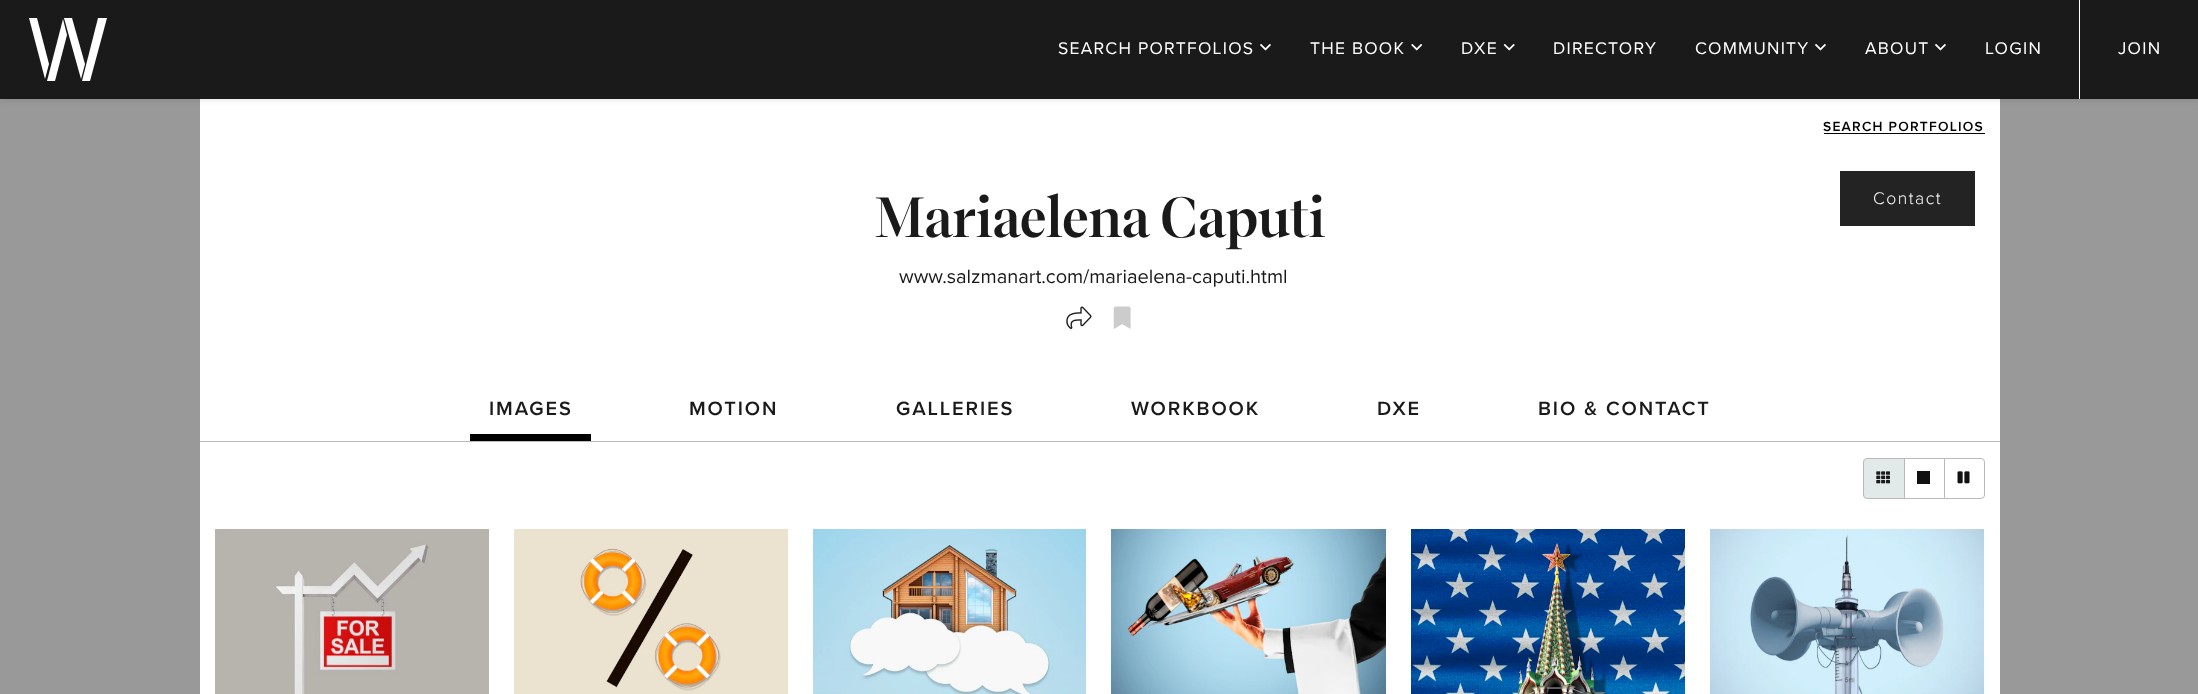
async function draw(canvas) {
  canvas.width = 2198
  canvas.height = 694
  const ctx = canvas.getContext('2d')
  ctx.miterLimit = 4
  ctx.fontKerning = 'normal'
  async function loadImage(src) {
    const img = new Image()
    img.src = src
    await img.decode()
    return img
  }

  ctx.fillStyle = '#999'
  ctx.fillRect(0, 0, 2198, 694)
  ctx.fillStyle = '#fff'
  ctx.fillRect(200, 99, 1800, 595)
  ctx.fillStyle = '#00000014'
  ctx.filter = 'blur(2.5px)'
  ctx.beginPath()
  ctx.rect(0, 3, 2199, 98)
  ctx.fill()
  ctx.filter = 'none'
  ctx.fillStyle = '#1a1a1a'
  ctx.fillRect(0, 0, 2198, 99)
  ctx.fillStyle = '#fff'
  ctx.beginPath()
  ctx.moveTo(37, 18)
  ctx.lineTo(29, 18)
  ctx.lineTo(45, 79)
  ctx.lineTo(49, 64)
  ctx.closePath()
  ctx.fill()
  ctx.beginPath()
  ctx.moveTo(47, 81)
  ctx.lineTo(55, 81)
  ctx.lineTo(67, 35)
  ctx.lineTo(63, 19)
  ctx.closePath()
  ctx.fill()
  ctx.beginPath()
  ctx.moveTo(72, 18)
  ctx.lineTo(64, 18)
  ctx.lineTo(81, 79)
  ctx.lineTo(85, 64)
  ctx.closePath()
  ctx.fill()
  ctx.beginPath()
  ctx.moveTo(98, 18)
  ctx.lineTo(82, 81)
  ctx.lineTo(90, 81)
  ctx.lineTo(107, 18)
  ctx.closePath()
  ctx.fill()
  ctx.letterSpacing = '1.25px'
  ctx.font = '17.5px Proxima Nova'
  ctx.fillText('SEARCH PORTFOLIOS', 1058, 54)
  ctx.drawImage(await loadImage('image0.png'), 1260, 44, 11, 7)
  ctx.fillText('THE BOOK', 1310, 54)
  ctx.drawImage(await loadImage('image1.png'), 1411, 44, 12, 7)
  ctx.fillText('DXE', 1461, 54)
  ctx.drawImage(await loadImage('image2.png'), 1503, 44, 12, 7)
  ctx.fillText('DIRECTORY', 1553, 54)
  ctx.fillText('COMMUNITY', 1695, 54)
  ctx.drawImage(await loadImage('image0.png'), 1815, 44, 11, 7)
  ctx.fillText('ABOUT', 1865, 54)
  ctx.drawImage(await loadImage('image0.png'), 1935, 44, 11, 7)
  ctx.fillText('LOGIN', 1985, 54)
  ctx.fillRect(2079, 0, 1, 99)
  ctx.fillText('JOIN', 2118, 54)
  ctx.font = '600 13.75px Proxima Nova'
  ctx.fillStyle = '#000'
  ctx.fillText('SEARCH PORTFOLIOS', 1823, 131)
  ctx.fillRect(1824, 133, 161, 1)
  ctx.fillStyle = '#bababa'
  ctx.fillRect(200, 441, 1800, 1)
  ctx.letterSpacing = '-1.25px'
  ctx.font = '600 56.25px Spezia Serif'
  ctx.fillStyle = '#1a1a1a'
  ctx.fillText('Mariaelena Caputi', 874, 237)
  ctx.letterSpacing = '0px'
  ctx.font = '20px Proxima Nova'
  ctx.fillText('www.salzmanart.com/mariaelena-caputi.html', 899, 283)
  ctx.drawImage(await loadImage('image3.png'), 1066, 306, 26, 23)
  ctx.drawImage(await loadImage('image4.png'), 1113, 306, 18, 23)
  ctx.fillStyle = '#232323'
  ctx.fillRect(1840, 171, 135, 55)
  ctx.letterSpacing = '1.5px'
  ctx.font = '300 17.5px Proxima Nova'
  ctx.fillStyle = '#fff'
  ctx.fillText('Contact', 1873, 204)
  ctx.letterSpacing = '1.9px'
  ctx.font = '600 20px Proxima Nova'
  ctx.fillStyle = '#1a1a1a'
  ctx.fillText('IMAGES', 489, 415)
  ctx.fillStyle = '#000'
  ctx.fillRect(470, 434, 121, 7)
  ctx.fillStyle = '#1a1a1a'
  ctx.fillText('MOTION', 689, 415)
  ctx.fillText('GALLERIES', 896, 415)
  ctx.fillText('WORKBOOK', 1131, 415)
  ctx.fillText('DXE', 1377, 415)
  ctx.fillText('BIO & CONTACT', 1538, 415)
  ctx.strokeStyle = '#bababa'
  ctx.strokeRect(1904.5, 458.5, 40, 40)
  ctx.fillStyle = '#e2eae9'
  ctx.beginPath()
  ctx.roundRect(1863.5, 458.5, 41, 40, [3.5, 0, 0, 3.5])
  ctx.fill()
  ctx.stroke()
  ctx.drawImage(await loadImage('image5.png'), 1876, 471, 14, 13)
  ctx.fillStyle = '#111'
  ctx.fillRect(1917, 471, 13, 13)
  ctx.fillStyle = '#fff'
  ctx.beginPath()
  ctx.roundRect(1944.5, 458.5, 40, 40, [0, 3.5, 3.5, 0])
  ctx.fill()
  ctx.stroke()
  ctx.drawImage(await loadImage('image6.png'), 1957, 471, 13, 13)
  ctx.drawImage(await loadImage('image7.png'), 215, 529, 274, 165)
  ctx.drawImage(await loadImage('image8.png'), 514, 529, 274, 165)
  ctx.drawImage(await loadImage('image9.png'), 813, 529, 273, 165)
  ctx.drawImage(await loadImage('image10.png'), 1111, 529, 275, 165)
  ctx.drawImage(await loadImage('image11.png'), 1411, 529, 274, 165)
  ctx.drawImage(await loadImage('image12.png'), 1710, 529, 274, 165)
}

draw(document.querySelector('canvas'))
